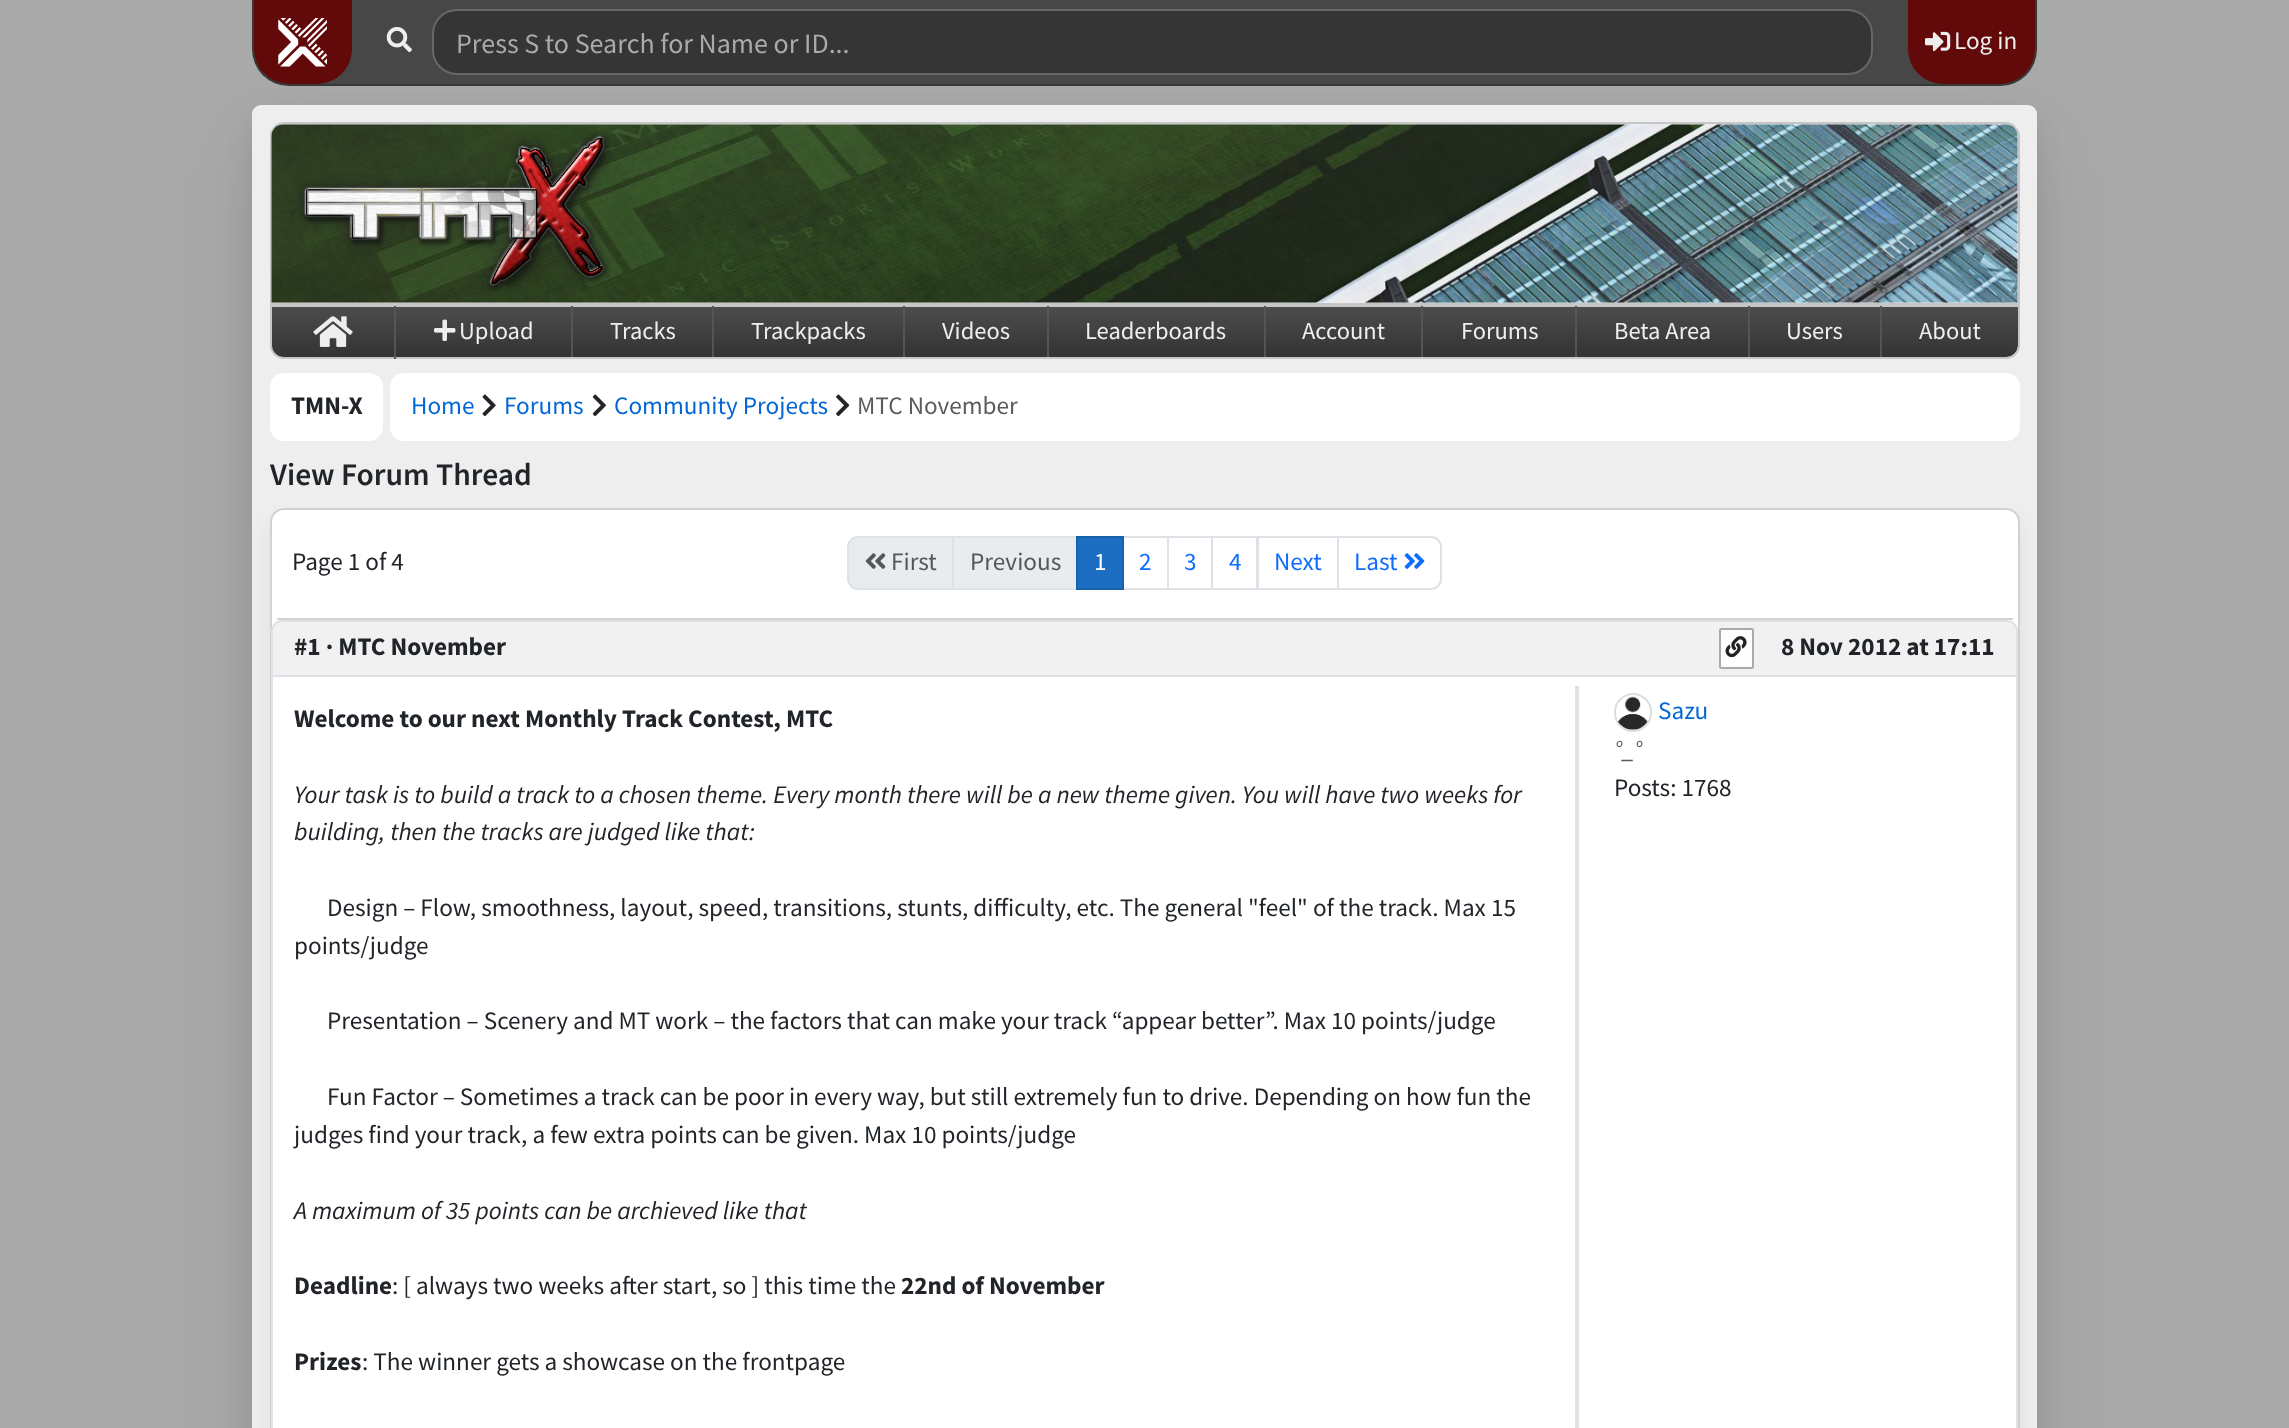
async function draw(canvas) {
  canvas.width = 2289
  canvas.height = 1428
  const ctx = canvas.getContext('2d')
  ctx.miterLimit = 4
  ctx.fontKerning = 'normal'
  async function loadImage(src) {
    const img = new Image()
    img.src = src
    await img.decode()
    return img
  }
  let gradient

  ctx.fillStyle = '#aaa'
  ctx.fillRect(0, 0, 2289, 1428)
  ctx.fillStyle = '#0000001a'
  ctx.filter = 'blur(44px)'
  ctx.beginPath()
  ctx.roundRect(252, 140, 1785, 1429, 9)
  ctx.fill()
  ctx.filter = 'none'
  ctx.fillStyle = '#00000012'
  ctx.filter = 'blur(13px)'
  ctx.beginPath()
  ctx.roundRect(252, 116, 1785, 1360, 9)
  ctx.fill()
  ctx.filter = 'none'
  ctx.fillStyle = '#373938'
  ctx.beginPath()
  ctx.roundRect(252, 0, 1785, 86, [0, 0, 37, 37])
  ctx.fill()
  ctx.fillStyle = '#474747'
  ctx.beginPath()
  ctx.roundRect(254, 0, 1781, 84, [0, 0, 35, 35])
  ctx.fill()
  ctx.fillStyle = '#620909'
  ctx.beginPath()
  ctx.roundRect(254, 0, 98, 84, [0, 0, 35, 35])
  ctx.fill()
  ctx.drawImage(await loadImage('image0.png'), 278, 18, 49, 49)
  ctx.drawImage(await loadImage('image1.png'), 386, 27, 26, 26)
  ctx.fillStyle = '#353535'
  ctx.beginPath()
  ctx.roundRect(433, 10, 1439, 64, 24)
  ctx.fill()
  ctx.strokeStyle = '#676767'
  ctx.lineWidth = 2
  ctx.stroke()
  ctx.font = '28px Source Sans Pro'
  ctx.fillStyle = '#aaa'
  ctx.fillText('Press S to Search for Name or ID...', 456, 53)
  ctx.fillStyle = '#620909'
  ctx.beginPath()
  ctx.roundRect(1908, 0, 127, 84, [0, 0, 35, 35])
  ctx.fill()
  ctx.drawImage(await loadImage('image2.png'), 1925, 31, 26, 21)
  ctx.font = '25.2px Source Sans Pro'
  ctx.fillStyle = '#eee'
  ctx.fillText('Log in', 1954, 49)
  ctx.beginPath()
  ctx.roundRect(252, 105, 1785, 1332, 9)
  ctx.fill()
  ctx.fillStyle = '#c6c6c6'
  ctx.beginPath()
  ctx.moveTo(284, 122)
  ctx.lineTo(2006, 122)
  ctx.bezierCurveTo(2013, 122, 2020, 129, 2020, 136)
  ctx.lineTo(2020, 303)
  ctx.lineTo(270, 303)
  ctx.lineTo(270, 136)
  ctx.bezierCurveTo(270, 129, 276, 122, 284, 122)
  ctx.closePath()
  ctx.moveTo(284, 124)
  ctx.lineTo(2006, 124)
  ctx.bezierCurveTo(2012, 124, 2018, 130, 2018, 136)
  ctx.lineTo(2018, 303)
  ctx.lineTo(271, 303)
  ctx.lineTo(271, 136)
  ctx.bezierCurveTo(271, 130, 277, 124, 284, 124)
  ctx.closePath()
  ctx.fill('evenodd')
  ctx.drawImage(await loadImage('image3.png'), 271, 124, 1747, 179)
  ctx.drawImage(await loadImage('image4.png'), 298, 131, 313, 161)
  gradient = ctx.createLinearGradient(1145, 357, 1145, 306)
  gradient.addColorStop(0, '#333')
  gradient.addColorStop(1, '#4d4d4d')
  ctx.fillStyle = gradient
  ctx.beginPath()
  ctx.roundRect(271, 306, 1747, 51, [0, 0, 12, 12])
  ctx.fill()
  ctx.beginPath()
  ctx.roundRect(271, 304, 1748, 54, [0, 0, 13, 13])
  ctx.strokeStyle = '#c6c6c6'
  ctx.stroke()
  ctx.fillStyle = '#c6c6c6'
  ctx.fillRect(270, 305, 1750, 2)
  ctx.fillStyle = '#555'
  ctx.fillRect(394, 306, 2, 53)
  ctx.drawImage(await loadImage('image5.png'), 313, 316, 40, 31)
  ctx.fillRect(571, 306, 2, 51)
  ctx.drawImage(await loadImage('image6.png'), 434, 319, 22, 22)
  ctx.font = '24.5px Source Sans Pro'
  ctx.fillStyle = '#eee'
  ctx.fillText('Upload', 459, 339)
  ctx.fillStyle = '#555'
  ctx.fillRect(712, 306, 2, 51)
  ctx.fillStyle = '#eee'
  ctx.fillText('Tracks', 610, 339)
  ctx.fillStyle = '#555'
  ctx.fillRect(903, 306, 2, 51)
  ctx.fillStyle = '#eee'
  ctx.fillText('Trackpacks', 751, 339)
  ctx.fillStyle = '#555'
  ctx.fillRect(1047, 306, 2, 51)
  ctx.fillStyle = '#eee'
  ctx.fillText('Videos', 942, 339)
  ctx.fillStyle = '#555'
  ctx.fillRect(1264, 306, 2, 51)
  ctx.fillStyle = '#eee'
  ctx.fillText('Leaderboards', 1085, 339)
  ctx.fillStyle = '#555'
  ctx.fillRect(1421, 306, 2, 51)
  ctx.fillStyle = '#eee'
  ctx.fillText('Account', 1302, 339)
  ctx.fillStyle = '#555'
  ctx.fillRect(1575, 306, 2, 51)
  ctx.fillStyle = '#eee'
  ctx.fillText('Forums', 1461, 339)
  ctx.fillStyle = '#555'
  ctx.fillRect(1748, 306, 2, 51)
  ctx.fillStyle = '#eee'
  ctx.fillText('Beta Area', 1614, 339)
  ctx.fillStyle = '#555'
  ctx.fillRect(1880, 306, 2, 51)
  ctx.fillStyle = '#eee'
  ctx.fillText('Users', 1786, 339)
  ctx.fillText('About', 1919, 339)
  ctx.fillStyle = '#fff'
  ctx.beginPath()
  ctx.roundRect(270, 373, 113, 68, 14)
  ctx.fill()
  ctx.font = 'bold 25.2px Source Sans Pro'
  ctx.fillStyle = '#212529'
  ctx.fillText('TMN-X', 291, 414)
  ctx.fillStyle = '#fff'
  ctx.beginPath()
  ctx.roundRect(390, 373, 1630, 68, 14)
  ctx.fill()
  ctx.font = '25.2px Source Sans Pro'
  ctx.fillStyle = '#0366d6'
  ctx.fillText('Home', 411, 414)
  ctx.drawImage(await loadImage('image7.png'), 482, 394, 14, 22)
  ctx.fillText('Forums', 504, 414)
  ctx.drawImage(await loadImage('image8.png'), 592, 394, 14, 22)
  ctx.fillText('Community Projects', 614, 414)
  ctx.drawImage(await loadImage('image9.png'), 836, 394, 14, 22)
  ctx.fillStyle = '#595c5f'
  ctx.fillText('MTC November', 857, 414)
  ctx.font = '600 31.5px Source Sans Pro'
  ctx.fillStyle = '#212529'
  ctx.fillText('View Forum Thread', 270, 485)
  ctx.fillStyle = '#0000000f'
  ctx.filter = 'blur(9.5px)'
  ctx.beginPath()
  ctx.roundRect(270, 520, 1750, 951, 14)
  ctx.fill()
  ctx.filter = 'none'
  ctx.fillStyle = '#fff'
  ctx.beginPath()
  ctx.roundRect(270, 508, 1750, 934, 14)
  ctx.fill()
  ctx.beginPath()
  ctx.roundRect(271, 509, 1748, 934, 13)
  ctx.strokeStyle = '#0000002e'
  ctx.stroke()
  ctx.font = '25.2px Source Sans Pro'
  ctx.fillStyle = '#212529'
  ctx.fillText('Page 1 of 4', 292, 570)
  ctx.fillStyle = '#e9ecef'
  ctx.beginPath()
  ctx.roundRect(848, 537, 105, 52, [10, 0, 0, 10])
  ctx.fill()
  ctx.strokeStyle = '#dee2e6'
  ctx.stroke()
  ctx.drawImage(await loadImage('image10.png'), 865, 553, 21, 16)
  ctx.fillStyle = '#53575b'
  ctx.fillText('First', 891, 570)
  ctx.fillStyle = '#e9ecef'
  ctx.beginPath()
  ctx.rect(953, 537, 124, 52)
  ctx.fill()
  ctx.stroke()
  ctx.fillStyle = '#53575b'
  ctx.fillText('Previous', 970, 570)
  ctx.strokeRect(1123, 537, 45, 52)
  ctx.fillStyle = '#1b6ec2'
  ctx.beginPath()
  ctx.rect(1077, 537, 46, 52)
  ctx.fill()
  ctx.strokeStyle = '#1861ac'
  ctx.stroke()
  ctx.fillStyle = '#fff'
  ctx.fillText('1', 1094, 570)
  ctx.fillStyle = '#0d6efd'
  ctx.fillText('2', 1139, 570)
  ctx.strokeStyle = '#dee2e6'
  ctx.strokeRect(1168, 537, 44, 52)
  ctx.fillText('3', 1184, 570)
  ctx.strokeRect(1212, 537, 45, 52)
  ctx.fillText('4', 1229, 570)
  ctx.strokeRect(1258, 537, 80, 52)
  ctx.fillText('Next', 1274, 570)
  ctx.fillStyle = '#fff'
  ctx.beginPath()
  ctx.roundRect(1338, 537, 103, 52, [0, 10, 10, 0])
  ctx.fill()
  ctx.stroke()
  ctx.fillStyle = '#0d6efd'
  ctx.fillText('Last', 1354, 570)
  ctx.drawImage(await loadImage('image11.png'), 1404, 553, 21, 16)
  ctx.fillStyle = '#d2d2d2'
  ctx.fillRect(277, 618, 1736, 2)
  ctx.fillStyle = '#f1f1f1'
  ctx.beginPath()
  ctx.roundRect(272, 621, 1745, 55, [10, 10, 0, 0])
  ctx.fill()
  ctx.stroke()
  ctx.font = 'bold 25.2px Source Sans Pro'
  ctx.fillStyle = '#212529'
  ctx.fillText('#1 · MTC November', 294, 655)
  ctx.fillStyle = '#fefefe'
  ctx.beginPath()
  ctx.roundRect(1720, 629, 33, 39, 1.5)
  ctx.fill()
  ctx.strokeStyle = '#aaa'
  ctx.stroke()
  ctx.drawImage(await loadImage('image12.png'), 1725, 636, 22, 22)
  ctx.fillStyle = '#212529'
  ctx.fillText('8 Nov 2012 at 17:11', 1781, 655)
  ctx.fillStyle = '#dee2e6'
  ctx.fillRect(2016, 677, 2, 751)
  ctx.fillRect(271, 677, 2, 751)
  ctx.fillRect(1575, 686, 4, 742)
  ctx.fillStyle = '#212529'
  ctx.fillText('Welcome to our next Monthly Track Contest, MTC', 294, 727)
  ctx.font = 'italic 25.2px Source Sans Pro'
  ctx.fillText('Your task is to build a track to a chosen theme. Every month there will be a new theme given. You will have two weeks for', 294, 803)
  ctx.fillText('building, then the tracks are judged like that:', 294, 840)
  ctx.font = '25.2px Source Sans Pro'
  ctx.fillText('Design – Flow, smoothness, layout, speed, transitions, stunts, difficulty, etc. The general "feel" of the track. Max 15', 327, 916)
  ctx.fillText('points/judge', 294, 954)
  ctx.fillText('Presentation – Scenery and MT work – the factors that can make your track “appear better”. Max 10 points/judge', 327, 1029)
  ctx.fillText('Fun Factor – Sometimes a track can be poor in every way, but still extremely fun to drive. Depending on how fun the', 327, 1105)
  ctx.fillText('judges find your track, a few extra points can be given. Max 10 points/judge', 294, 1143)
  ctx.font = 'italic 25.2px Source Sans Pro'
  ctx.fillText('A maximum of 35 points can be archieved like that', 294, 1219)
  ctx.font = 'bold 25.2px Source Sans Pro'
  ctx.fillText('Deadline', 294, 1294)
  ctx.font = '25.2px Source Sans Pro'
  ctx.fillText(': [ always two weeks after start, so ] this time the', 392, 1294)
  ctx.font = 'bold 25.2px Source Sans Pro'
  ctx.fillText('22nd of November', 901, 1294)
  ctx.fillText('Prizes', 294, 1370)
  ctx.font = '25.2px Source Sans Pro'
  ctx.fillText(': The winner gets a showcase on the frontpage', 362, 1370)
  ctx.beginPath()
  ctx.roundRect(1615, 694, 36, 37, 18)
  ctx.strokeStyle = '#ddd'
  ctx.stroke()
  ctx.drawImage(await loadImage('image13.png'), 1618, 696, 30, 34)
  ctx.fillStyle = '#0366d6'
  ctx.fillText('Sazu', 1658, 719)
  ctx.font = 'italic 25.2px Source Sans Pro'
  ctx.fillStyle = '#595c5f'
  ctx.fillText('°_°', 1614, 758)
  ctx.font = '25.2px Source Sans Pro'
  ctx.fillStyle = '#212529'
  ctx.fillText('Posts: 1768', 1614, 796)
}

draw(document.querySelector('canvas'))
